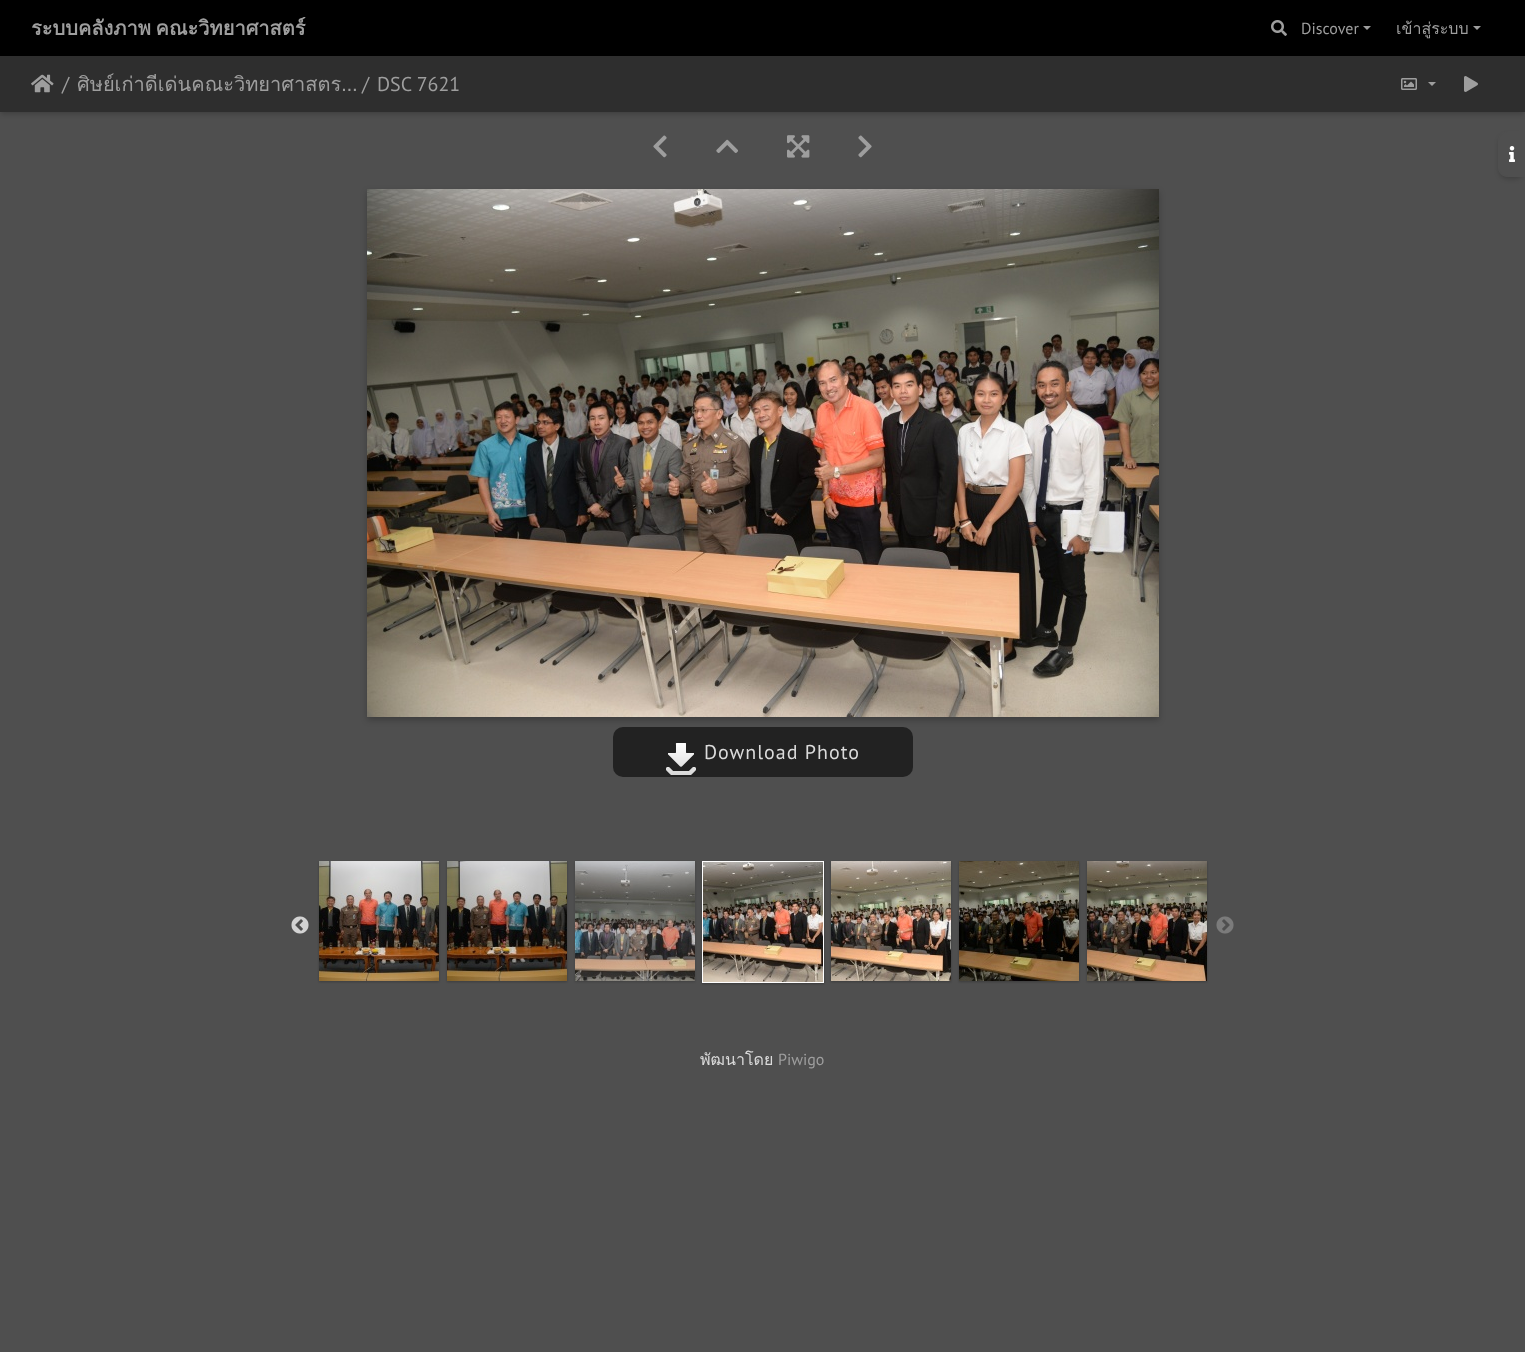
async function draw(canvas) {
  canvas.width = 1525
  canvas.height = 1352
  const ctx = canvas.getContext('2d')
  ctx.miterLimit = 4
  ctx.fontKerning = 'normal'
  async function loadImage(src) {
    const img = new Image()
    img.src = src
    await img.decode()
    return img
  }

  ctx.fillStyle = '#4f4f4f'
  ctx.fillRect(0, 0, 1525, 1352)
  ctx.fillStyle = '#00000033'
  ctx.filter = 'blur(2.5px)'
  ctx.beginPath()
  ctx.rect(1, 60, 1523, 54)
  ctx.fill()
  ctx.filter = 'none'
  ctx.fillStyle = '#000'
  ctx.fillRect(0, 0, 1525, 56)
  ctx.wordSpacing = '-2px'
  ctx.font = 'bold 20px Loma'
  ctx.fillStyle = '#9e9e9e'
  ctx.fillText('ระบบคลังภาพ คณะวิทยาศาสตร์', 31, 35)
  ctx.drawImage(await loadImage('image0.png'), 1271, 20, 16, 16)
  ctx.wordSpacing = '0px'
  ctx.font = '16px PT Sans'
  ctx.fillText('Discover', 1301, 34)
  ctx.beginPath()
  ctx.moveTo(1363, 26)
  ctx.lineTo(1371, 26)
  ctx.lineTo(1367, 30)
  ctx.closePath()
  ctx.fill()
  ctx.font = '16px Loma'
  ctx.fillText('เข้าสู่ระบบ', 1396, 34)
  ctx.beginPath()
  ctx.moveTo(1473, 26)
  ctx.lineTo(1481, 26)
  ctx.lineTo(1477, 30)
  ctx.closePath()
  ctx.fill()
  ctx.fillStyle = '#2e2e2e'
  ctx.fillRect(0, 56, 1525, 56)
  ctx.drawImage(await loadImage('image1.png'), 31, 74, 23, 19)
  ctx.font = '20px PT Sans'
  ctx.fillStyle = '#9e9e9e'
  ctx.fillText('/', 62, 91)
  ctx.font = '20px Loma'
  ctx.fillText('ศิษย์เก่าดีเด่นคณะวิทยาศาสตร…', 77, 91)
  ctx.font = '20px PT Sans'
  ctx.fillText('/', 362, 91)
  ctx.fillText('DSC 7621', 377, 91)
  ctx.drawImage(await loadImage('image2.png'), 1401, 78, 16, 12)
  ctx.beginPath()
  ctx.moveTo(1428, 82)
  ctx.lineTo(1436, 82)
  ctx.lineTo(1432, 86)
  ctx.closePath()
  ctx.fill()
  ctx.drawImage(await loadImage('image3.png'), 1464, 76, 14, 16)
  ctx.drawImage(await loadImage('image4.png'), 653, 135, 14, 23)
  ctx.drawImage(await loadImage('image5.png'), 716, 139, 22, 14)
  ctx.drawImage(await loadImage('image6.png'), 787, 135, 23, 23)
  ctx.drawImage(await loadImage('image7.png'), 858, 135, 14, 23)
  ctx.fillStyle = '#00000033'
  ctx.filter = 'blur(2.5px)'
  ctx.beginPath()
  ctx.roundRect(1499, 135, 25, 44, 9)
  ctx.fill()
  ctx.filter = 'none'
  ctx.fillStyle = '#4f4f4f'
  ctx.beginPath()
  ctx.roundRect(1498, 131, 27, 46, [10, 0, 0, 10])
  ctx.fill()
  ctx.beginPath()
  ctx.moveTo(1508, 131)
  ctx.lineTo(1525, 131)
  ctx.lineTo(1525, 177)
  ctx.lineTo(1508, 177)
  ctx.bezierCurveTo(1502, 177, 1498, 173, 1498, 167)
  ctx.lineTo(1498, 141)
  ctx.bezierCurveTo(1498, 135, 1502, 131, 1508, 131)
  ctx.closePath()
  ctx.moveTo(1508, 132)
  ctx.lineTo(1525, 132)
  ctx.lineTo(1525, 176)
  ctx.lineTo(1508, 176)
  ctx.bezierCurveTo(1503, 176, 1499, 172, 1499, 167)
  ctx.lineTo(1499, 141)
  ctx.bezierCurveTo(1499, 136, 1503, 132, 1508, 132)
  ctx.closePath()
  ctx.fill('evenodd')
  ctx.drawImage(await loadImage('image8.png'), 1509, 146, 6, 16)
  ctx.fillStyle = '#222'
  ctx.beginPath()
  ctx.roundRect(613, 727, 300, 50, 10)
  ctx.fill()
  ctx.fillStyle = '#0000003b'
  ctx.filter = 'blur(3px)'
  ctx.beginPath()
  ctx.rect(367, 192, 792, 528)
  ctx.fill()
  ctx.filter = 'none'
  ctx.drawImage(await loadImage('image9.png'), 367, 189, 792, 528)
  ctx.drawImage(await loadImage('image10.png'), 666, 743, 30, 32)
  ctx.letterSpacing = '1px'
  ctx.fillStyle = '#dbdbdb'
  ctx.fillText('Download Photo', 704, 759)
  ctx.drawImage(await loadImage('image11.png'), 291, 916, 18, 18)
  ctx.save()
  ctx.beginPath()
  ctx.moveTo(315, 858)
  ctx.lineTo(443, 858)
  ctx.lineTo(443, 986)
  ctx.lineTo(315, 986)
  ctx.closePath()
  ctx.moveTo(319, 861)
  ctx.lineTo(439, 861)
  ctx.lineTo(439, 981)
  ctx.lineTo(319, 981)
  ctx.closePath()
  ctx.clip('evenodd')
  ctx.fillStyle = '#0505053d'
  ctx.filter = 'blur(1px)'
  ctx.beginPath()
  ctx.rect(319, 862, 120, 120)
  ctx.fill()
  ctx.filter = 'none'
  ctx.restore()
  ctx.drawImage(await loadImage('image12.png'), 319, 861, 120, 120)
  ctx.save()
  ctx.beginPath()
  ctx.moveTo(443, 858)
  ctx.lineTo(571, 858)
  ctx.lineTo(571, 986)
  ctx.lineTo(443, 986)
  ctx.closePath()
  ctx.moveTo(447, 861)
  ctx.lineTo(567, 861)
  ctx.lineTo(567, 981)
  ctx.lineTo(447, 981)
  ctx.closePath()
  ctx.clip('evenodd')
  ctx.fillStyle = '#0505053d'
  ctx.filter = 'blur(1px)'
  ctx.beginPath()
  ctx.rect(447, 862, 120, 120)
  ctx.fill()
  ctx.filter = 'none'
  ctx.restore()
  ctx.drawImage(await loadImage('image13.png'), 447, 861, 120, 120)
  ctx.save()
  ctx.beginPath()
  ctx.moveTo(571, 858)
  ctx.lineTo(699, 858)
  ctx.lineTo(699, 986)
  ctx.lineTo(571, 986)
  ctx.closePath()
  ctx.moveTo(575, 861)
  ctx.lineTo(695, 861)
  ctx.lineTo(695, 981)
  ctx.lineTo(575, 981)
  ctx.closePath()
  ctx.clip('evenodd')
  ctx.fillStyle = '#1313133d'
  ctx.filter = 'blur(1px)'
  ctx.beginPath()
  ctx.rect(575, 862, 120, 120)
  ctx.fill()
  ctx.filter = 'none'
  ctx.restore()
  ctx.drawImage(await loadImage('image14.png'), 575, 861, 120, 120)
  ctx.fillStyle = '#0000003d'
  ctx.filter = 'blur(1px)'
  ctx.beginPath()
  ctx.rect(702, 862, 122, 122)
  ctx.fill()
  ctx.filter = 'none'
  ctx.strokeStyle = '#fff'
  ctx.strokeRect(702.5, 861.5, 121, 121)
  ctx.drawImage(await loadImage('image15.png'), 703, 862, 120, 120)
  ctx.filter = 'blur(1px)'
  ctx.beginPath()
  ctx.rect(831, 862, 120, 120)
  ctx.fill()
  ctx.filter = 'none'
  ctx.drawImage(await loadImage('image16.png'), 831, 861, 120, 120)
  ctx.filter = 'blur(1px)'
  ctx.beginPath()
  ctx.rect(959, 862, 120, 120)
  ctx.fill()
  ctx.filter = 'none'
  ctx.drawImage(await loadImage('image17.png'), 959, 861, 120, 120)
  ctx.filter = 'blur(1px)'
  ctx.beginPath()
  ctx.rect(1087, 862, 120, 120)
  ctx.fill()
  ctx.filter = 'none'
  ctx.drawImage(await loadImage('image18.png'), 1087, 861, 120, 120)
  ctx.drawImage(await loadImage('image19.png'), 1216, 916, 18, 18)
  ctx.letterSpacing = '0px'
  ctx.font = '16px Loma'
  ctx.fillStyle = '#dbdbdb'
  ctx.fillText('พัฒนาโดย', 700, 1065)
  ctx.font = '16px PT Sans'
  ctx.fillStyle = '#9e9e9e'
  ctx.fillText('Piwigo', 778, 1065)
}

draw(document.querySelector('canvas'))
